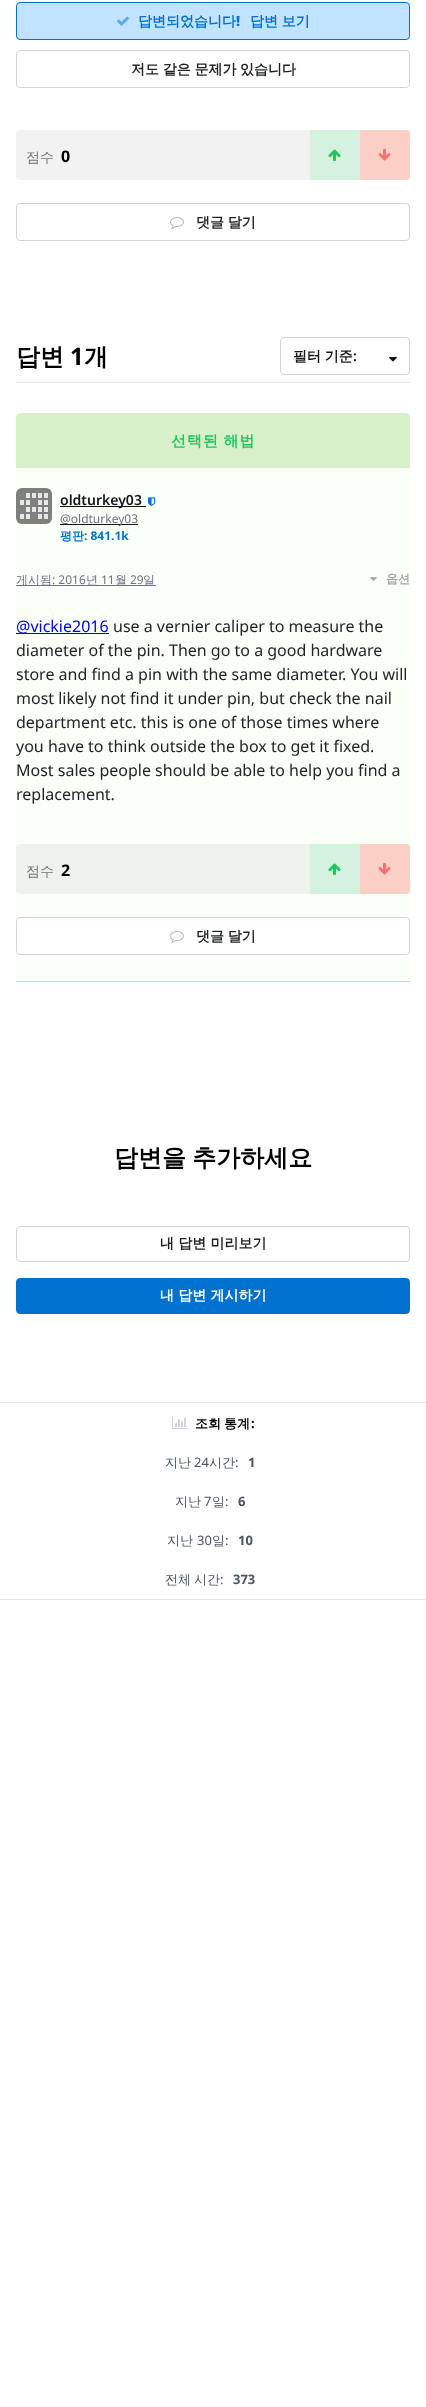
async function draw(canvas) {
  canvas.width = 426
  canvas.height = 2407
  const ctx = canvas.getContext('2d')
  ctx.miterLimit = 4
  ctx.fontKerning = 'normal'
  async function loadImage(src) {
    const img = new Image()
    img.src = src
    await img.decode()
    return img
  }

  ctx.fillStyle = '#fff'
  ctx.fillRect(0, 0, 426, 2407)
  ctx.fillStyle = '#c2e3ff'
  ctx.beginPath()
  ctx.roundRect(16.5, 2.5, 393, 37, 3.5)
  ctx.fill()
  ctx.strokeStyle = '#0071ce'
  ctx.stroke()
  ctx.drawImage(await loadImage('image0.png'), 117, 16, 12, 10)
  ctx.font = 'bold 14px WenQuanYi Zen Hei'
  ctx.fillStyle = '#0071ce'
  ctx.fillText('답변되었습니다', 138, 26)
  ctx.font = '900 14px Noto Sans'
  ctx.fillText('!', 236, 26)
  ctx.wordSpacing = '-0.5px'
  ctx.font = 'bold 14px WenQuanYi Zen Hei'
  ctx.fillText('답변 보기', 250, 26)
  ctx.beginPath()
  ctx.roundRect(16.5, 50.5, 393, 37, 3.5)
  ctx.strokeStyle = '#d1d5db'
  ctx.stroke()
  ctx.fillStyle = '#212426'
  ctx.fillText('저도 같은 문제가 있습니다', 131, 74)
  ctx.fillStyle = '#f2f2f2'
  ctx.beginPath()
  ctx.roundRect(16, 130, 394, 50, 4)
  ctx.fill()
  ctx.wordSpacing = '0px'
  ctx.font = '500 14px WenQuanYi Zen Hei'
  ctx.fillStyle = '#737373'
  ctx.fillText('점수', 26, 162)
  ctx.font = 'bold 16px Noto Sans'
  ctx.fillStyle = '#000'
  ctx.fillText('0', 61, 162)
  ctx.fillStyle = '#d3f3df'
  ctx.fillRect(310, 130, 50, 50)
  ctx.drawImage(await loadImage('image1.png'), 328, 149, 13, 12)
  ctx.fillStyle = '#facfc5'
  ctx.beginPath()
  ctx.roundRect(360, 130, 50, 50, [0, 4, 4, 0])
  ctx.fill()
  ctx.drawImage(await loadImage('image2.png'), 378, 149, 13, 12)
  ctx.beginPath()
  ctx.roundRect(16.5, 203.5, 393, 37, 3.5)
  ctx.stroke()
  ctx.drawImage(await loadImage('image3.png'), 170, 217, 14, 12)
  ctx.wordSpacing = '-0.5px'
  ctx.font = 'bold 14px WenQuanYi Zen Hei'
  ctx.fillStyle = '#212426'
  ctx.fillText('댓글 달기', 196, 227)
  ctx.fillStyle = '#e5e7eb'
  ctx.fillRect(16, 382, 394, 1)
  ctx.wordSpacing = '0px'
  ctx.font = 'bold 24px WenQuanYi Zen Hei'
  ctx.fillStyle = '#000'
  ctx.fillText('답변', 16, 365)
  ctx.font = 'bold 24px Noto Sans'
  ctx.fillText('1', 70, 365)
  ctx.font = 'bold 24px WenQuanYi Zen Hei'
  ctx.fillText('개', 84, 365)
  ctx.beginPath()
  ctx.roundRect(280.5, 337.5, 129, 37, 3.5)
  ctx.stroke()
  ctx.wordSpacing = '-0.5px'
  ctx.font = 'bold 14px WenQuanYi Zen Hei'
  ctx.fillStyle = '#11161a'
  ctx.fillText('필터 기준', 293, 361)
  ctx.wordSpacing = '0px'
  ctx.font = '600 14px Noto Sans'
  ctx.fillText(':', 353, 361)
  ctx.drawImage(await loadImage('image4.png'), 389, 357, 8, 5)
  ctx.fillStyle = '#fafff7'
  ctx.fillRect(16, 413, 394, 568)
  ctx.fillStyle = '#bce5a5'
  ctx.fillRect(16, 981, 394, 1)
  ctx.fillStyle = '#d8f1ca'
  ctx.beginPath()
  ctx.roundRect(16, 413, 394, 55, [5, 5, 0, 0])
  ctx.fill()
  ctx.letterSpacing = '1px'
  ctx.wordSpacing = '-1px'
  ctx.font = 'bold 15px WenQuanYi Zen Hei'
  ctx.fillStyle = '#22c55e'
  ctx.fillText('선택된 해법', 171, 446)
  ctx.fillStyle = '#7d807c'
  ctx.beginPath()
  ctx.roundRect(16, 488, 36, 36, 6)
  ctx.fill()
  ctx.drawImage(await loadImage('image5.png'), 20, 493, 28, 26)
  ctx.fillStyle = '#11161a'
  ctx.fillRect(60, 506, 86, 1)
  ctx.letterSpacing = '0px'
  ctx.wordSpacing = '0px'
  ctx.font = '600 14px Noto Sans'
  ctx.fillText('oldturkey03', 60, 505)
  ctx.drawImage(await loadImage('image6.png'), 148, 497, 8, 9)
  ctx.fillRect(60, 524, 78, 1)
  ctx.font = '12px Noto Sans'
  ctx.fillStyle = '#6b7280'
  ctx.fillText('@oldturkey03', 60, 523)
  ctx.font = 'bold 12px WenQuanYi Zen Hei'
  ctx.fillStyle = '#0071ce'
  ctx.fillText('평판', 60, 540)
  ctx.font = 'bold 12px Noto Sans'
  ctx.fillText(': 841.1k', 84, 540)
  ctx.fillStyle = '#6b7280'
  ctx.fillRect(16, 585, 140, 1)
  ctx.font = '500 12px WenQuanYi Zen Hei'
  ctx.fillText('게시됨', 16, 584)
  ctx.font = '12px Noto Sans'
  ctx.fillText(': 2016', 52, 584)
  ctx.font = '500 12px WenQuanYi Zen Hei'
  ctx.fillText('년', 86, 584)
  ctx.font = '12px Noto Sans'
  ctx.fillText('11', 101, 584)
  ctx.font = '500 12px WenQuanYi Zen Hei'
  ctx.fillText('월', 115, 584)
  ctx.font = '12px Noto Sans'
  ctx.fillText('29', 130, 584)
  ctx.font = '500 12px WenQuanYi Zen Hei'
  ctx.fillText('일', 143, 584)
  ctx.drawImage(await loadImage('image7.png'), 370, 577, 7, 4)
  ctx.font = 'bold 12px WenQuanYi Zen Hei'
  ctx.fillStyle = '#a3a7a3'
  ctx.fillText('옵션', 386, 583)
  ctx.fillStyle = '#00e'
  ctx.fillRect(16, 633, 93, 1)
  ctx.font = '16px Noto Sans'
  ctx.fillText('@vickie2016', 16, 632)
  ctx.fillStyle = '#212426'
  ctx.fillText('use a vernier caliper to measure the', 113, 632)
  ctx.fillText('diameter of the pin. Then go to a good hardware', 16, 656)
  ctx.fillText('store and find a pin with the same diameter. You will', 16, 680)
  ctx.fillText('most likely not find it under pin, but check the nail', 16, 704)
  ctx.fillText('department etc. this is one of those times where', 16, 728)
  ctx.fillText('you have to think outside the box to get it fixed.', 16, 752)
  ctx.fillText('Most sales people should be able to help you find a', 16, 776)
  ctx.fillText('replacement.', 16, 800)
  ctx.fillStyle = '#eef2eb'
  ctx.beginPath()
  ctx.roundRect(16, 844, 394, 50, 4)
  ctx.fill()
  ctx.font = '500 14px WenQuanYi Zen Hei'
  ctx.fillStyle = '#737373'
  ctx.fillText('점수', 26, 876)
  ctx.font = 'bold 16px Noto Sans'
  ctx.fillStyle = '#000'
  ctx.fillText('2', 61, 876)
  ctx.fillStyle = '#d3f3df'
  ctx.fillRect(310, 844, 50, 50)
  ctx.drawImage(await loadImage('image1.png'), 328, 863, 13, 12)
  ctx.fillStyle = '#facfc5'
  ctx.beginPath()
  ctx.roundRect(360, 844, 50, 50, [0, 4, 4, 0])
  ctx.fill()
  ctx.drawImage(await loadImage('image2.png'), 378, 863, 13, 12)
  ctx.fillStyle = '#fff'
  ctx.beginPath()
  ctx.roundRect(16.5, 917.5, 393, 37, 3.5)
  ctx.fill()
  ctx.stroke()
  ctx.drawImage(await loadImage('image3.png'), 170, 931, 14, 12)
  ctx.wordSpacing = '-0.5px'
  ctx.font = 'bold 14px WenQuanYi Zen Hei'
  ctx.fillStyle = '#212426'
  ctx.fillText('댓글 달기', 196, 941)
  ctx.wordSpacing = '-1px'
  ctx.font = 'bold 24px WenQuanYi Zen Hei'
  ctx.fillStyle = '#000'
  ctx.fillText('답변을 추가하세요', 114, 1166)
  ctx.beginPath()
  ctx.roundRect(16.5, 1226.5, 393, 35, 3.5)
  ctx.stroke()
  ctx.wordSpacing = '0px'
  ctx.font = 'bold 14px WenQuanYi Zen Hei'
  ctx.fillStyle = '#212426'
  ctx.fillText('내 답변 미리보기', 160, 1248)
  ctx.fillStyle = '#0071ce'
  ctx.beginPath()
  ctx.roundRect(16.5, 1278.5, 393, 35, 3.5)
  ctx.fill()
  ctx.strokeStyle = '#0071ce'
  ctx.stroke()
  ctx.fillStyle = '#fff'
  ctx.fillText('내 답변 게시하기', 160, 1300)
  ctx.fillStyle = '#e5e7eb'
  ctx.fillRect(0, 1402, 426, 1)
  ctx.fillRect(0, 1599, 426, 1)
  ctx.drawImage(await loadImage('image8.png'), 172, 1417, 16, 12)
  ctx.wordSpacing = '-1px'
  ctx.font = 'bold 13px WenQuanYi Zen Hei'
  ctx.fillStyle = '#000'
  ctx.fillText('조회 통계', 195, 1428)
  ctx.wordSpacing = '0px'
  ctx.font = 'bold 13px Noto Sans'
  ctx.fillText(':', 251, 1428)
  ctx.font = '500 13px WenQuanYi Zen Hei'
  ctx.fillStyle = '#4b5563'
  ctx.fillText('지난', 165, 1467)
  ctx.font = '13px Noto Sans'
  ctx.fillText('24', 194, 1467)
  ctx.font = '500 13px WenQuanYi Zen Hei'
  ctx.fillText('시간', 209, 1467)
  ctx.font = '13px Noto Sans'
  ctx.fillText(':', 235, 1467)
  ctx.font = 'bold 13px Noto Sans'
  ctx.fillText('1', 248, 1467)
  ctx.font = '500 13px WenQuanYi Zen Hei'
  ctx.fillText('지난', 175, 1506)
  ctx.font = '13px Noto Sans'
  ctx.fillText('7', 204, 1506)
  ctx.font = '500 13px WenQuanYi Zen Hei'
  ctx.fillText('일', 212, 1506)
  ctx.font = '13px Noto Sans'
  ctx.fillText(':', 225, 1506)
  ctx.font = 'bold 13px Noto Sans'
  ctx.fillText('6', 238, 1506)
  ctx.font = '500 13px WenQuanYi Zen Hei'
  ctx.fillText('지난', 167, 1545)
  ctx.font = '13px Noto Sans'
  ctx.fillText('30', 197, 1545)
  ctx.font = '500 13px WenQuanYi Zen Hei'
  ctx.fillText('일', 212, 1545)
  ctx.font = '13px Noto Sans'
  ctx.fillText(':', 225, 1545)
  ctx.font = 'bold 13px Noto Sans'
  ctx.fillText('10', 238, 1545)
  ctx.wordSpacing = '-1px'
  ctx.font = '500 13px WenQuanYi Zen Hei'
  ctx.fillText('전체 시간', 165, 1584)
  ctx.wordSpacing = '0px'
  ctx.font = '13px Noto Sans'
  ctx.fillText(':', 220, 1584)
  ctx.font = 'bold 13px Noto Sans'
  ctx.fillText('373', 233, 1584)
}

draw(document.querySelector('canvas'))
